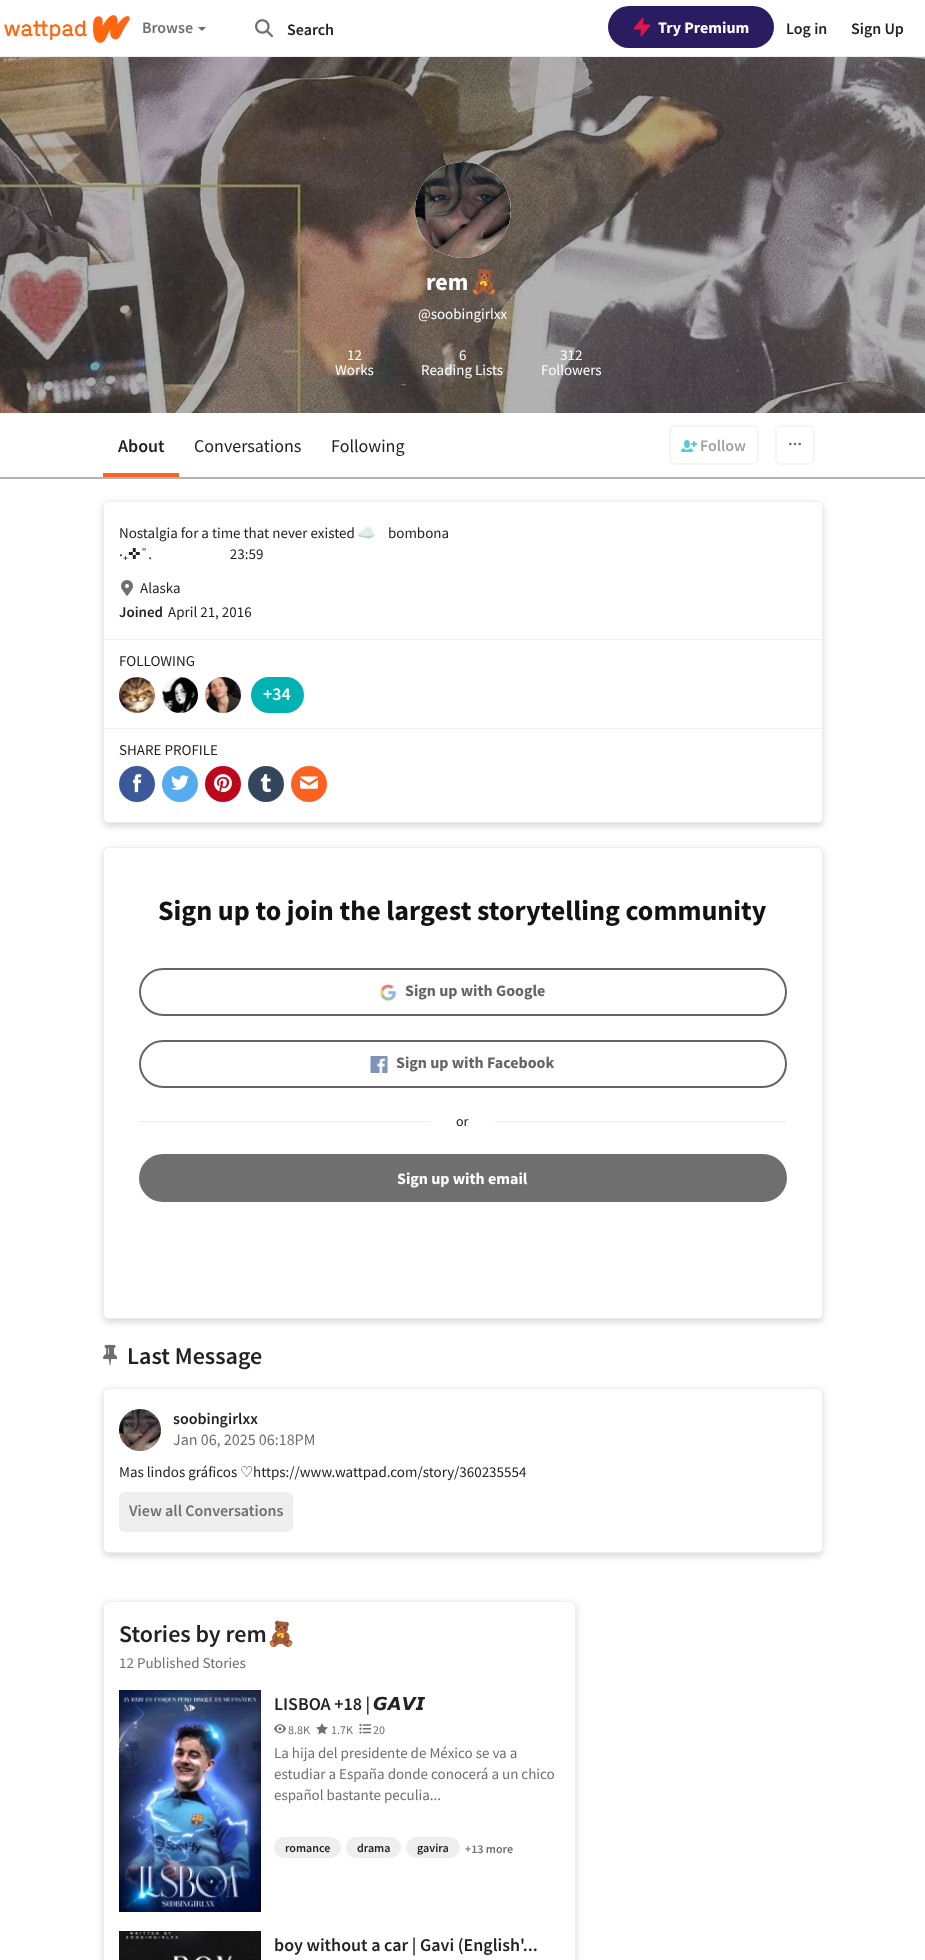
async function draw(canvas) {
  canvas.width = 925
  canvas.height = 1960
  const ctx = canvas.getContext('2d')
  ctx.miterLimit = 4
  ctx.fontKerning = 'normal'
  async function loadImage(src) {
    const img = new Image()
    img.src = src
    await img.decode()
    return img
  }

  ctx.fillStyle = '#fff'
  ctx.fillRect(0, 0, 925, 1960)
  ctx.fillStyle = '#eee'
  ctx.fillRect(0, 56, 925, 1)
  ctx.drawImage(await loadImage('image0.png'), 4, 15, 126, 28)
  ctx.font = '600 16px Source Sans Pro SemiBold'
  ctx.fillStyle = '#6f6f6f'
  ctx.fillText('Browse', 142, 33)
  ctx.beginPath()
  ctx.moveTo(198, 27)
  ctx.lineTo(206, 27)
  ctx.lineTo(202, 31)
  ctx.closePath()
  ctx.fill()
  ctx.drawImage(await loadImage('image1.png'), 255, 19, 18, 19)
  ctx.fillStyle = '#222'
  ctx.fillText('Search', 287, 35)
  ctx.fillStyle = '#2a1c60'
  ctx.beginPath()
  ctx.roundRect(608, 6, 166, 42, 21)
  ctx.fill()
  ctx.drawImage(await loadImage('image2.png'), 633, 17, 18, 20)
  ctx.font = 'bold 16px Source Sans Pro'
  ctx.fillStyle = '#fff'
  ctx.fillText('Try Premium', 658, 33)
  ctx.font = '600 16px Source Sans Pro SemiBold'
  ctx.fillStyle = '#222'
  ctx.fillText('Log in', 786, 34)
  ctx.fillText('Sign Up', 851, 34)
  ctx.drawImage(await loadImage('image3.png'), 0, 57, 925, 356)
  ctx.fillStyle = '#eee'
  ctx.beginPath()
  ctx.arc(463, 210, 48, 0, 2 * Math.PI)
  ctx.fill()
  ctx.drawImage(await loadImage('image4.png'), 415, 162, 96, 96)
  ctx.font = 'bold 24px Source Sans Pro'
  ctx.fillStyle = '#fff'
  ctx.fillText('rem', 426, 290)
  ctx.font = 'bold 24px Noto Color Emoji'
  ctx.fillText('🧸', 469, 290)
  ctx.font = '15px Source Sans Pro'
  ctx.fillText('@soobingirlxx', 418, 319)
  ctx.fillText('12', 347, 360)
  ctx.fillText('Works', 335, 375)
  ctx.fillText('6', 459, 360)
  ctx.fillText('Reading Lists', 421, 375)
  ctx.fillText('312', 560, 360)
  ctx.fillText('Followers', 541, 375)
  ctx.fillStyle = '#b3b3b3'
  ctx.fillRect(0, 477, 925, 2)
  ctx.fillStyle = '#ff6122'
  ctx.fillRect(103, 473, 76, 4)
  ctx.font = '600 18px Source Sans Pro SemiBold'
  ctx.fillStyle = '#222'
  ctx.fillText('About', 118, 452)
  ctx.font = '18px Source Sans Pro'
  ctx.fillText('Conversations', 194, 452)
  ctx.fillText('Following', 331, 452)
  ctx.beginPath()
  ctx.roundRect(670, 426, 88, 38, 5)
  ctx.strokeStyle = '#f4f4f4'
  ctx.lineWidth = 2
  ctx.stroke()
  ctx.drawImage(await loadImage('image5.png'), 681, 440, 16, 12)
  ctx.font = '600 16px Source Sans Pro SemiBold'
  ctx.fillStyle = '#a1a1a1'
  ctx.fillText('Follow', 700, 451)
  ctx.beginPath()
  ctx.roundRect(776, 426, 38, 38, 5)
  ctx.stroke()
  ctx.beginPath()
  ctx.arc(790.3, 444, 0.7, 0, 2 * Math.PI)
  ctx.strokeStyle = '#6f6f6f'
  ctx.lineWidth = 1.3
  ctx.stroke()
  ctx.beginPath()
  ctx.arc(795, 444, 0.7, 0, 2 * Math.PI)
  ctx.stroke()
  ctx.beginPath()
  ctx.arc(799.7, 444, 0.7, 0, 2 * Math.PI)
  ctx.stroke()
  ctx.fillStyle = '#2222221a'
  ctx.filter = 'blur(2.5px)'
  ctx.beginPath()
  ctx.roundRect(103, 505, 720, 322, 5)
  ctx.fill()
  ctx.filter = 'none'
  ctx.fillStyle = '#22222214'
  ctx.filter = 'blur(5px)'
  ctx.beginPath()
  ctx.roundRect(103, 502, 720, 322, 5)
  ctx.fill()
  ctx.filter = 'none'
  ctx.fillStyle = '#fff'
  ctx.beginPath()
  ctx.roundRect(103.5, 501.5, 719, 321, 4.5)
  ctx.fill()
  ctx.strokeStyle = '#eee'
  ctx.lineWidth = 1
  ctx.stroke()
  ctx.font = '15px Source Sans Pro'
  ctx.fillStyle = '#222'
  ctx.fillText('Nostalgia for a time that never existed', 119, 538)
  ctx.font = '15px Noto Color Emoji'
  ctx.fillText('☁️', 357, 538)
  ctx.font = '15px Source Sans Pro'
  ctx.fillText('bombona', 388, 538)
  ctx.font = '15px Noto Sans'
  ctx.fillText('‧₊', 119, 559)
  ctx.font = '15px DejaVu Sans'
  ctx.fillText('✜', 128, 559)
  ctx.font = '15px Source Sans Pro'
  ctx.fillText('˚.                          23:59', 140, 559)
  ctx.drawImage(await loadImage('image6.png'), 121, 580, 12, 16)
  ctx.fillText('Alaska', 140, 593)
  ctx.font = '600 15px Source Sans Pro SemiBold'
  ctx.fillText('Joined', 119, 617)
  ctx.font = '15px Source Sans Pro'
  ctx.fillText('April 21, 2016', 168, 617)
  ctx.fillStyle = '#eee'
  ctx.fillRect(104, 639, 718, 1)
  ctx.fillStyle = '#222'
  ctx.fillText('FOLLOWING', 119, 666)
  ctx.drawImage(await loadImage('image7.png'), 119, 677, 36, 36)
  ctx.drawImage(await loadImage('image8.png'), 162, 677, 36, 36)
  ctx.drawImage(await loadImage('image9.png'), 205, 677, 36, 36)
  ctx.fillStyle = '#00b2b2'
  ctx.beginPath()
  ctx.roundRect(251, 677, 53, 36, 18)
  ctx.fill()
  ctx.font = '600 18px Source Sans Pro SemiBold'
  ctx.fillStyle = '#fff'
  ctx.fillText('+34', 263, 700)
  ctx.fillStyle = '#eee'
  ctx.fillRect(104, 728, 718, 1)
  ctx.font = '15px Source Sans Pro'
  ctx.fillStyle = '#222'
  ctx.fillText('SHARE PROFILE', 119, 755)
  ctx.fillStyle = '#3b5998'
  ctx.beginPath()
  ctx.arc(137, 784, 18, 0, 2 * Math.PI)
  ctx.fill()
  ctx.drawImage(await loadImage('image10.png'), 133, 774, 9, 19)
  ctx.fillStyle = '#55acee'
  ctx.beginPath()
  ctx.arc(180, 784, 18, 0, 2 * Math.PI)
  ctx.fill()
  ctx.drawImage(await loadImage('image11.png'), 171, 775, 18, 15)
  ctx.fillStyle = '#bd081c'
  ctx.beginPath()
  ctx.arc(223, 784, 18, 0, 2 * Math.PI)
  ctx.fill()
  ctx.drawImage(await loadImage('image12.png'), 214, 774, 18, 19)
  ctx.fillStyle = '#35465c'
  ctx.beginPath()
  ctx.arc(266, 784, 18, 0, 2 * Math.PI)
  ctx.fill()
  ctx.drawImage(await loadImage('image13.png'), 260, 774, 12, 19)
  ctx.fillStyle = '#ff6122'
  ctx.beginPath()
  ctx.arc(309, 784, 18, 0, 2 * Math.PI)
  ctx.fill()
  ctx.drawImage(await loadImage('image14.png'), 300, 776, 18, 13)
  ctx.fillStyle = '#2222221a'
  ctx.filter = 'blur(2.5px)'
  ctx.beginPath()
  ctx.roundRect(103, 851, 720, 472, 5)
  ctx.fill()
  ctx.filter = 'none'
  ctx.fillStyle = '#22222214'
  ctx.filter = 'blur(5px)'
  ctx.beginPath()
  ctx.roundRect(103, 848, 720, 472, 5)
  ctx.fill()
  ctx.filter = 'none'
  ctx.fillStyle = '#fff'
  ctx.beginPath()
  ctx.roundRect(103.5, 847.5, 719, 471, 4.5)
  ctx.fill()
  ctx.stroke()
  ctx.font = 'bold 28px Source Sans Pro'
  ctx.fillStyle = '#121212'
  ctx.fillText('Sign up to join the largest storytelling community', 158, 920)
  ctx.beginPath()
  ctx.roundRect(140, 969, 646, 46, 23)
  ctx.strokeStyle = '#656565'
  ctx.lineWidth = 2
  ctx.stroke()
  ctx.drawImage(await loadImage('image15.png'), 379, 984, 18, 17)
  ctx.font = 'bold 16px Source Sans Pro'
  ctx.fillStyle = '#656565'
  ctx.fillText('Sign up with Google', 405, 996)
  ctx.beginPath()
  ctx.roundRect(140, 1041, 646, 46, 23)
  ctx.stroke()
  ctx.drawImage(await loadImage('image16.png'), 370, 1056, 18, 17)
  ctx.fillText('Sign up with Facebook', 396, 1068)
  ctx.fillStyle = '#eee'
  ctx.fillRect(139, 1121, 291, 1)
  ctx.font = '14px Source Sans Pro'
  ctx.fillStyle = '#222'
  ctx.fillText('or', 456, 1126)
  ctx.fillStyle = '#eee'
  ctx.fillRect(495, 1121, 291, 1)
  ctx.fillStyle = '#6f6f6f'
  ctx.beginPath()
  ctx.roundRect(139, 1154, 648, 48, 24)
  ctx.fill()
  ctx.font = 'bold 16px Source Sans Pro'
  ctx.fillStyle = '#fff'
  ctx.fillText('Sign up with email', 397, 1184)
  ctx.drawImage(await loadImage('image17.png'), 103, 1344, 15, 22)
  ctx.font = '600 24px Source Sans Pro SemiBold'
  ctx.fillStyle = '#222'
  ctx.fillText('Last Message', 127, 1364)
  ctx.fillStyle = '#2222221a'
  ctx.filter = 'blur(2.5px)'
  ctx.beginPath()
  ctx.roundRect(103, 1392, 720, 165, 5)
  ctx.fill()
  ctx.filter = 'none'
  ctx.fillStyle = '#22222214'
  ctx.filter = 'blur(5px)'
  ctx.beginPath()
  ctx.roundRect(103, 1389, 720, 165, 5)
  ctx.fill()
  ctx.filter = 'none'
  ctx.fillStyle = '#fff'
  ctx.beginPath()
  ctx.roundRect(103.5, 1388.5, 719, 164, 4.5)
  ctx.fill()
  ctx.strokeStyle = '#eee'
  ctx.lineWidth = 1
  ctx.stroke()
  ctx.fillStyle = '#eee'
  ctx.beginPath()
  ctx.arc(140, 1430, 21, 0, 2 * Math.PI)
  ctx.fill()
  ctx.drawImage(await loadImage('image18.png'), 119, 1409, 42, 42)
  ctx.font = '600 16px Source Sans Pro SemiBold'
  ctx.fillStyle = '#222'
  ctx.fillText('soobingirlxx', 173, 1424)
  ctx.font = '16px Source Sans Pro'
  ctx.fillStyle = '#6f6f6f'
  ctx.fillText('Jan 06, 2025 06:18PM', 173, 1445)
  ctx.font = '15px Source Sans Pro'
  ctx.fillStyle = '#222'
  ctx.fillText('Mas lindos gráficos', 119, 1477)
  ctx.font = '15px DejaVu Sans'
  ctx.fillText('♡', 240, 1477)
  ctx.font = '15px Source Sans Pro'
  ctx.fillText('https://www.wattpad.com/story/360235554', 253, 1477)
  ctx.fillStyle = '#eee'
  ctx.beginPath()
  ctx.roundRect(119, 1492, 174, 40, 6)
  ctx.fill()
  ctx.font = '600 16px Source Sans Pro SemiBold'
  ctx.fillStyle = '#6f6f6f'
  ctx.fillText('View all Conversations', 129, 1516)
  ctx.fillStyle = '#2222221a'
  ctx.filter = 'blur(2.5px)'
  ctx.beginPath()
  ctx.roundRect(103, 1605, 473, 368, 5)
  ctx.fill()
  ctx.filter = 'none'
  ctx.fillStyle = '#22222214'
  ctx.filter = 'blur(5px)'
  ctx.beginPath()
  ctx.roundRect(103, 1602, 473, 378, 5)
  ctx.fill()
  ctx.filter = 'none'
  ctx.fillStyle = '#fff'
  ctx.beginPath()
  ctx.roundRect(103.5, 1601.5, 472, 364, 4.5)
  ctx.fill()
  ctx.stroke()
  ctx.font = '600 24px Source Sans Pro SemiBold'
  ctx.fillStyle = '#222'
  ctx.fillText('Stories by rem', 119, 1642)
  ctx.font = 'bold 24px Noto Color Emoji'
  ctx.fillText('🧸', 266, 1642)
  ctx.font = '15px Source Sans Pro'
  ctx.fillStyle = '#6f6f6f'
  ctx.fillText('12 Published Stories', 119, 1668)
  ctx.drawImage(await loadImage('image19.png'), 119, 1690, 142, 222)
  ctx.font = '600 18px Source Sans Pro SemiBold'
  ctx.fillStyle = '#222'
  ctx.fillText('LISBOA +18 |', 274, 1710)
  ctx.font = 'italic bold 18px DejaVu Sans'
  ctx.fillText('𝙂𝘼𝙑𝙄', 373, 1710)
  ctx.drawImage(await loadImage('image20.png'), 274, 1724, 12, 10)
  ctx.font = '12px Source Sans Pro'
  ctx.fillStyle = '#6f6f6f'
  ctx.fillText('8.8K', 288, 1734)
  ctx.drawImage(await loadImage('image21.png'), 316, 1723, 12, 12)
  ctx.fillText('1.7K', 331, 1734)
  ctx.drawImage(await loadImage('image22.png'), 359, 1723, 12, 11)
  ctx.fillText('20', 373, 1734)
  ctx.font = '15px Source Sans Pro'
  ctx.fillText('La hija del presidente de México se va a', 274, 1758)
  ctx.fillText('estudiar a España donde conocerá a un chico', 274, 1779)
  ctx.fillText('español bastante peculia...', 274, 1800)
  ctx.fillStyle = '#eee'
  ctx.beginPath()
  ctx.roundRect(274.5, 1837.5, 66, 20, 10)
  ctx.fill()
  ctx.stroke()
  ctx.font = '600 12px Source Sans Pro SemiBold'
  ctx.fillStyle = '#222'
  ctx.fillText('romance', 285, 1852)
  ctx.fillStyle = '#eee'
  ctx.beginPath()
  ctx.roundRect(346.5, 1837.5, 54, 20, 10)
  ctx.fill()
  ctx.stroke()
  ctx.fillStyle = '#222'
  ctx.fillText('drama', 357, 1852)
  ctx.fillStyle = '#eee'
  ctx.beginPath()
  ctx.roundRect(406.5, 1837.5, 53, 20, 10)
  ctx.fill()
  ctx.stroke()
  ctx.fillStyle = '#222'
  ctx.fillText('gavira', 417, 1852)
  ctx.fillStyle = '#6f6f6f'
  ctx.fillText('+13 more', 465, 1853)
  ctx.drawImage(await loadImage('image23.png'), 119, 1931, 142, 29)
  ctx.font = '600 18px Source Sans Pro SemiBold'
  ctx.fillStyle = '#222'
  ctx.fillText('boy without a car | Gavi (English\'...', 274, 1951)
}

draw(document.querySelector('canvas'))
